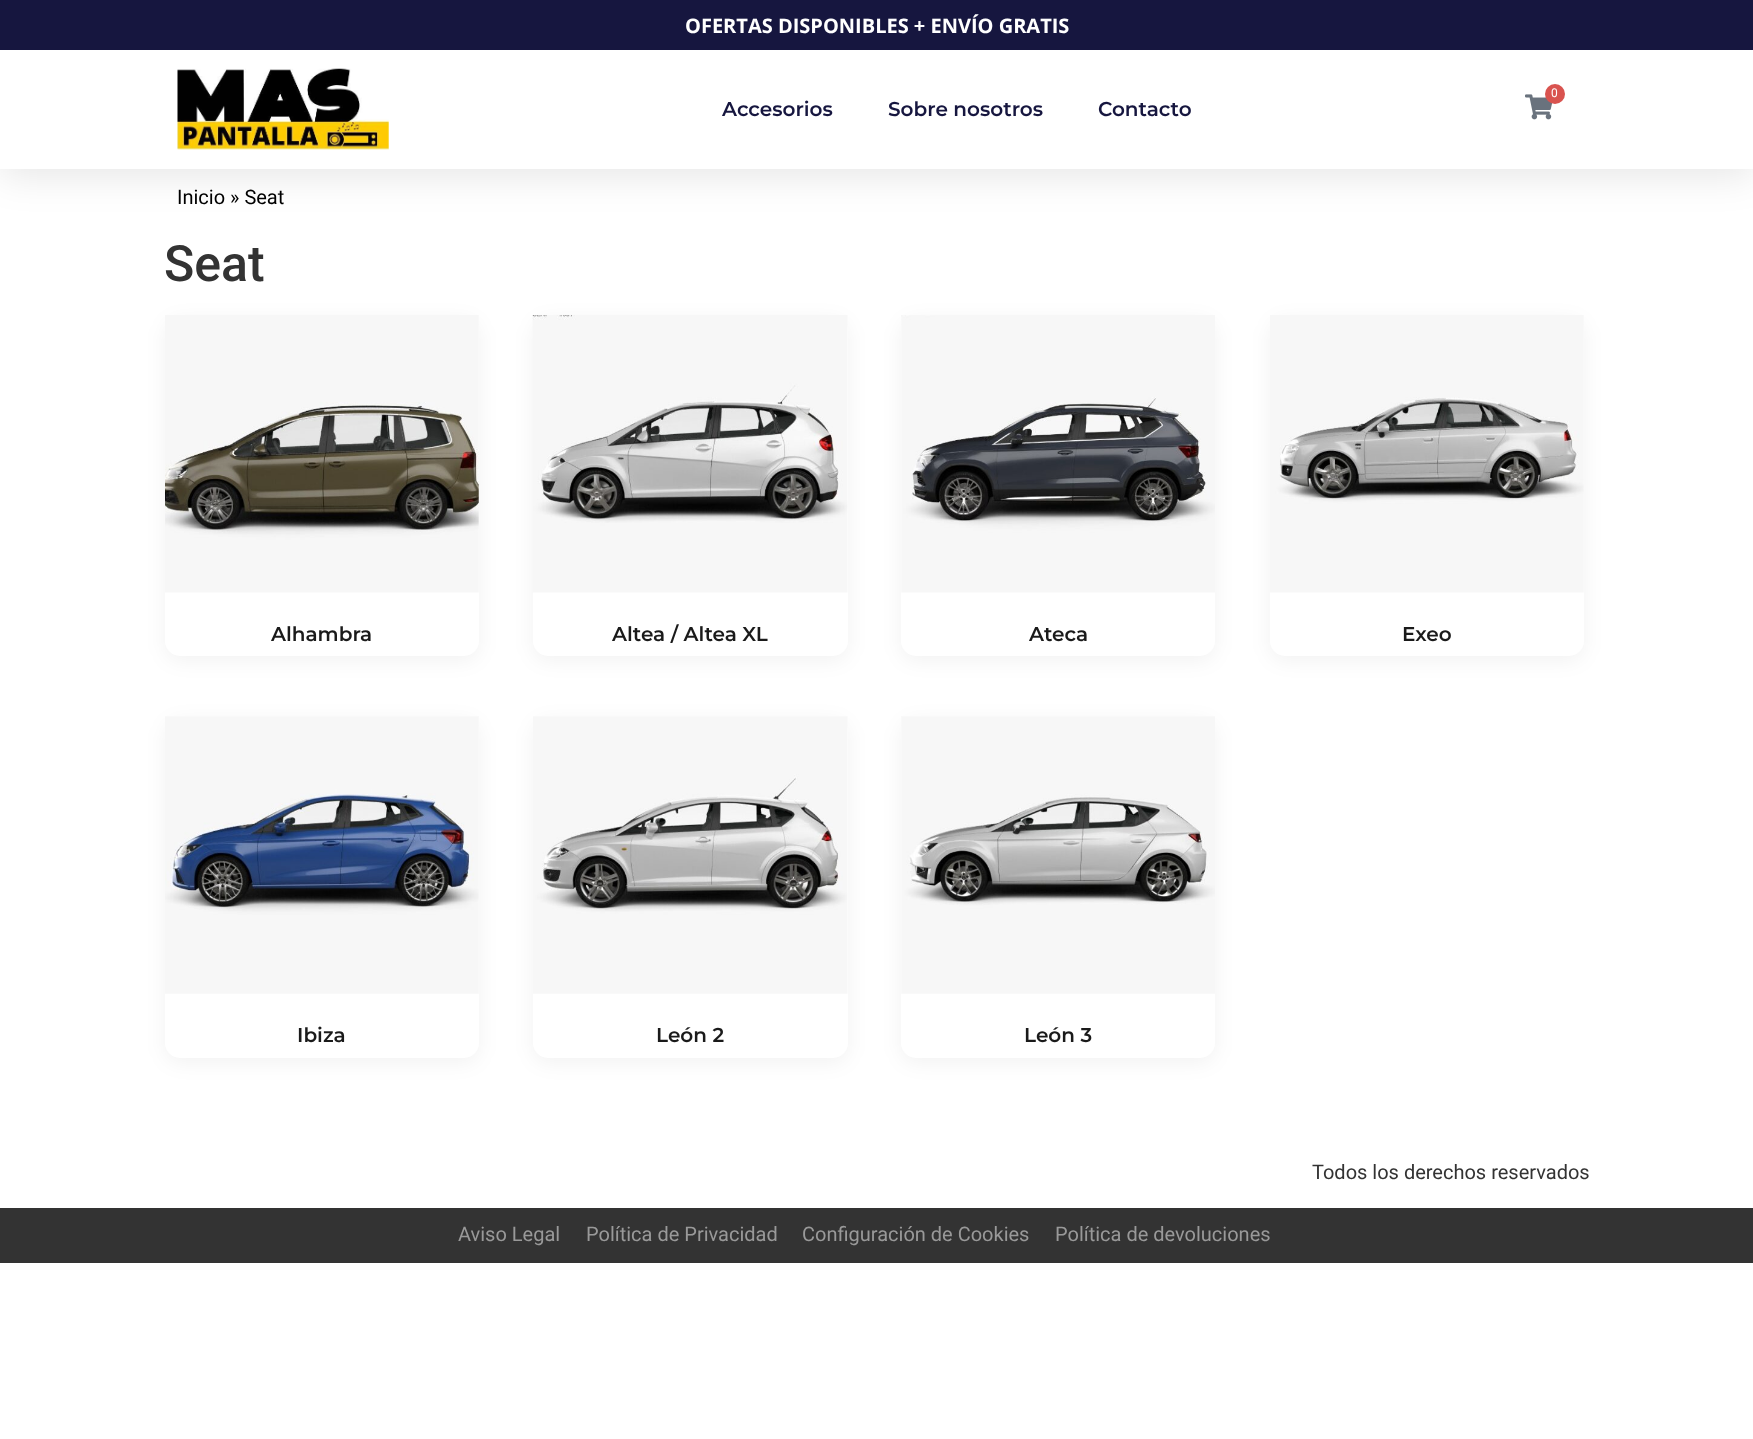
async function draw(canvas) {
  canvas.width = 1753
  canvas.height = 1439
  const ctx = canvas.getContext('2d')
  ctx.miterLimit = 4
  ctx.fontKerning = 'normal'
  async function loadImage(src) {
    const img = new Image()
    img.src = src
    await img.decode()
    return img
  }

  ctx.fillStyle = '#fff'
  ctx.fillRect(0, 0, 1753, 1439)
  ctx.fillStyle = '#0000001a'
  ctx.filter = 'blur(19px)'
  ctx.beginPath()
  ctx.rect(0, 6, 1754, 169)
  ctx.fill()
  ctx.filter = 'none'
  ctx.fillStyle = '#16163f'
  ctx.fillRect(0, 0, 1753, 50)
  ctx.font = 'bold 20px Open Sans'
  ctx.fillStyle = '#fff'
  ctx.fillText('OFERTAS DISPONIBLES + ENVÍO GRATIS', 685, 33)
  ctx.fillRect(0, 50, 1753, 119)
  ctx.drawImage(await loadImage('image0.png'), 177, 68, 212, 82)
  ctx.drawImage(await loadImage('image1.png'), 1525, 94, 28, 26)
  ctx.fillStyle = '#d9534f'
  ctx.beginPath()
  ctx.arc(1555, 94, 10, 0, 2 * Math.PI)
  ctx.fill()
  ctx.font = '12px Roboto'
  ctx.fillStyle = '#fff'
  ctx.fillText('0', 1551, 97)
  ctx.font = '600 20px Montserrat'
  ctx.fillStyle = '#16163f'
  ctx.fillText('Accesorios', 722, 116)
  ctx.fillText('Sobre nosotros', 888, 116)
  ctx.fillText('Contacto', 1098, 116)
  ctx.font = '20px Roboto'
  ctx.fillStyle = '#000'
  ctx.fillText('Inicio » Seat', 177, 204)
  ctx.font = '500 50px Roboto'
  ctx.fillStyle = '#333'
  ctx.fillText('Seat', 164, 281)
  ctx.fillStyle = '#0000000d'
  ctx.filter = 'blur(10px)'
  ctx.beginPath()
  ctx.roundRect(165, 320, 314, 341, 15)
  ctx.fill()
  ctx.filter = 'none'
  ctx.fillStyle = '#fff'
  ctx.beginPath()
  ctx.roundRect(165, 315, 314, 341, 15)
  ctx.fill()
  ctx.drawImage(await loadImage('image2.png'), 165, 315, 314, 278)
  ctx.font = '600 20px Montserrat'
  ctx.fillStyle = '#1a1a1a'
  ctx.fillText('Alhambra', 271, 641)
  ctx.fillStyle = '#0000000d'
  ctx.filter = 'blur(10px)'
  ctx.beginPath()
  ctx.roundRect(533, 320, 315, 341, 15)
  ctx.fill()
  ctx.filter = 'none'
  ctx.fillStyle = '#fff'
  ctx.beginPath()
  ctx.roundRect(533, 315, 315, 341, 15)
  ctx.fill()
  ctx.drawImage(await loadImage('image3.png'), 532, 315, 316, 278)
  ctx.fillStyle = '#1a1a1a'
  ctx.fillText('Altea / Altea XL', 612, 641)
  ctx.fillStyle = '#0000000d'
  ctx.filter = 'blur(10px)'
  ctx.beginPath()
  ctx.roundRect(901, 320, 314, 341, 15)
  ctx.fill()
  ctx.filter = 'none'
  ctx.fillStyle = '#fff'
  ctx.beginPath()
  ctx.roundRect(901, 315, 314, 341, 15)
  ctx.fill()
  ctx.drawImage(await loadImage('image4.png'), 901, 315, 314, 278)
  ctx.fillStyle = '#1a1a1a'
  ctx.fillText('Ateca', 1029, 641)
  ctx.fillStyle = '#0000000d'
  ctx.filter = 'blur(10px)'
  ctx.beginPath()
  ctx.roundRect(1270, 320, 314, 341, 15)
  ctx.fill()
  ctx.filter = 'none'
  ctx.fillStyle = '#fff'
  ctx.beginPath()
  ctx.roundRect(1270, 315, 314, 341, 15)
  ctx.fill()
  ctx.drawImage(await loadImage('image5.png'), 1270, 315, 314, 278)
  ctx.fillStyle = '#1a1a1a'
  ctx.fillText('Exeo', 1402, 641)
  ctx.fillStyle = '#0000000d'
  ctx.filter = 'blur(10px)'
  ctx.beginPath()
  ctx.roundRect(165, 721, 314, 342, 15)
  ctx.fill()
  ctx.filter = 'none'
  ctx.fillStyle = '#fff'
  ctx.beginPath()
  ctx.roundRect(165, 716, 314, 342, 15)
  ctx.fill()
  ctx.drawImage(await loadImage('image6.png'), 165, 716, 314, 278)
  ctx.fillStyle = '#1a1a1a'
  ctx.fillText('Ibiza', 297, 1042)
  ctx.fillStyle = '#0000000d'
  ctx.filter = 'blur(10px)'
  ctx.beginPath()
  ctx.roundRect(533, 721, 315, 342, 15)
  ctx.fill()
  ctx.filter = 'none'
  ctx.fillStyle = '#fff'
  ctx.beginPath()
  ctx.roundRect(533, 716, 315, 342, 15)
  ctx.fill()
  ctx.drawImage(await loadImage('image7.png'), 533, 716, 315, 278)
  ctx.fillStyle = '#1a1a1a'
  ctx.fillText('León 2', 656, 1042)
  ctx.fillStyle = '#0000000d'
  ctx.filter = 'blur(10px)'
  ctx.beginPath()
  ctx.roundRect(901, 721, 314, 342, 15)
  ctx.fill()
  ctx.filter = 'none'
  ctx.fillStyle = '#fff'
  ctx.beginPath()
  ctx.roundRect(901, 716, 314, 342, 15)
  ctx.fill()
  ctx.drawImage(await loadImage('image8.png'), 901, 716, 314, 278)
  ctx.fillStyle = '#1a1a1a'
  ctx.fillText('León 3', 1024, 1042)
  ctx.font = '20px Roboto'
  ctx.fillStyle = '#333'
  ctx.fillText('Todos los derechos reservados', 1312, 1179)
  ctx.fillRect(0, 1208, 1753, 55)
  ctx.fillStyle = '#999'
  ctx.fillText('Aviso Legal', 458, 1241)
  ctx.fillText('Política de Privacidad', 586, 1241)
  ctx.fillText('Configuración de Cookies', 802, 1241)
  ctx.fillText('Política de devoluciones', 1055, 1241)
}

draw(document.querySelector('canvas'))
